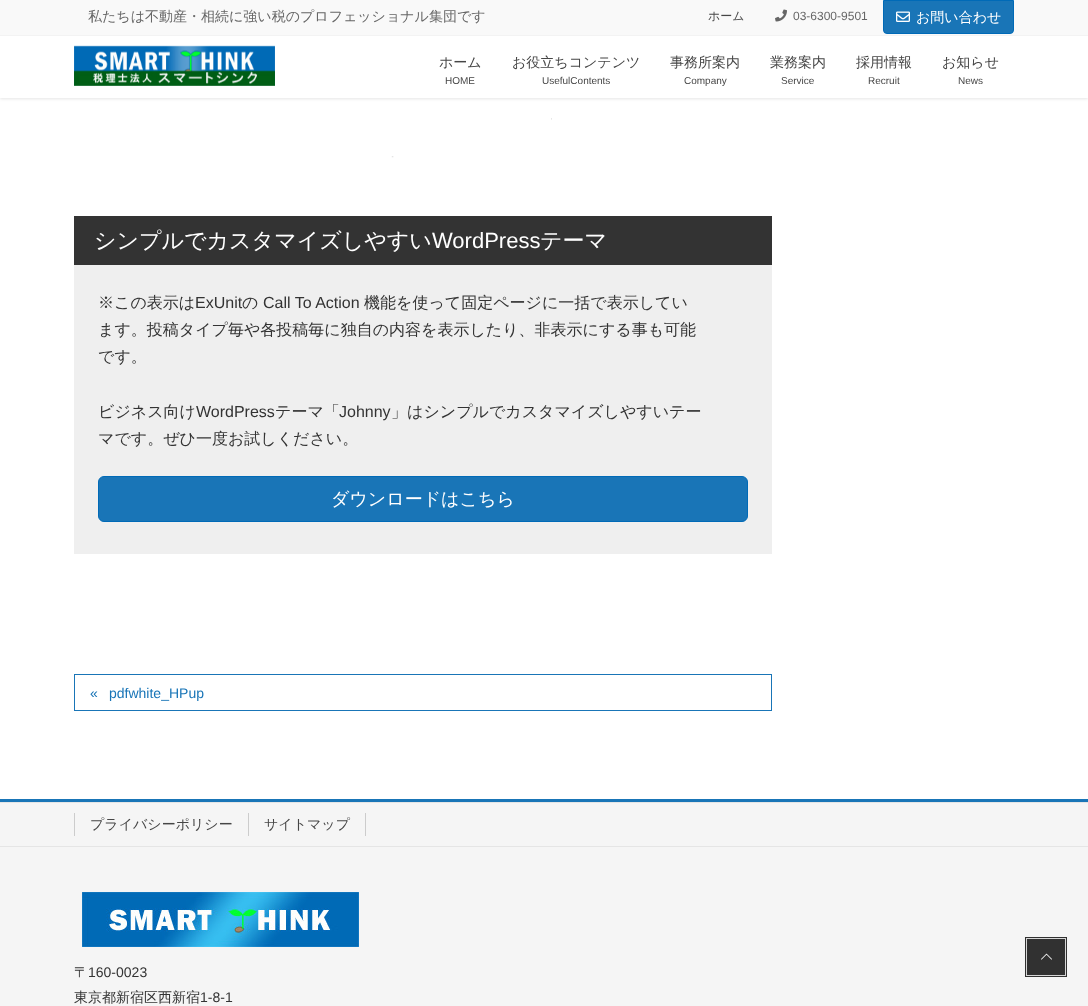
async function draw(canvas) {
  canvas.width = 1088
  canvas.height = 1006
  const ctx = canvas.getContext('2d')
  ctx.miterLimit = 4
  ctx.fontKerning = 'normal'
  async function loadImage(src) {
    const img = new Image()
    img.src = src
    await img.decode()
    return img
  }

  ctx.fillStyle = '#fff'
  ctx.fillRect(0, 0, 1088, 1006)
  ctx.fillStyle = '#0000001a'
  ctx.filter = 'blur(1.5px)'
  ctx.beginPath()
  ctx.rect(0, 1, 1088, 98)
  ctx.fill()
  ctx.filter = 'none'
  ctx.fillStyle = '#fff'
  ctx.fillRect(0, 36, 1088, 62)
  ctx.fillStyle = '#f9f9f9'
  ctx.fillRect(0, 0, 1088, 35)
  ctx.fillStyle = '#f3f3f3'
  ctx.fillRect(0, 35, 1088, 1)
  ctx.font = '500 14px WenQuanYi Zen Hei'
  ctx.fillStyle = '#666'
  ctx.fillText('私たちは不動産・相続に強い税のプロフェッショナル集団です', 88, 21)
  ctx.font = '500 12px WenQuanYi Zen Hei'
  ctx.fillStyle = '#464646'
  ctx.fillText('ホーム', 708, 20)
  ctx.drawImage(await loadImage('image0.png'), 775, 9, 12, 13)
  ctx.font = '12px Liberation Sans'
  ctx.fillStyle = '#666'
  ctx.fillText('03-6300-9501', 793, 20)
  ctx.fillStyle = '#1975b7'
  ctx.beginPath()
  ctx.roundRect(883.5, 0.5, 130, 33, [0, 0, 3.5, 3.5])
  ctx.fill()
  ctx.strokeStyle = '#006ab7'
  ctx.stroke()
  ctx.drawImage(await loadImage('image1.png'), 896, 11, 14, 11)
  ctx.font = '500 14px WenQuanYi Zen Hei'
  ctx.fillStyle = '#fff'
  ctx.fillText('お問い合わせ', 916, 22)
  ctx.drawImage(await loadImage('image2.png'), 74, 45, 201, 41)
  ctx.fillStyle = '#464646'
  ctx.fillText('ホーム', 439, 67)
  ctx.font = '10px Liberation Sans'
  ctx.fillText('HOME', 445, 84)
  ctx.font = '500 14px WenQuanYi Zen Hei'
  ctx.fillText('お役立ちコンテンツ', 512, 67)
  ctx.font = '10px Liberation Sans'
  ctx.fillText('UsefulContents', 542, 84)
  ctx.font = '500 14px WenQuanYi Zen Hei'
  ctx.fillText('事務所案内', 670, 67)
  ctx.font = '10px Liberation Sans'
  ctx.fillText('Company', 684, 84)
  ctx.font = '500 14px WenQuanYi Zen Hei'
  ctx.fillText('業務案内', 770, 67)
  ctx.font = '10px Liberation Sans'
  ctx.fillText('Service', 781, 84)
  ctx.font = '500 14px WenQuanYi Zen Hei'
  ctx.fillText('採用情報', 856, 67)
  ctx.font = '10px Liberation Sans'
  ctx.fillText('Recruit', 868, 84)
  ctx.font = '500 14px WenQuanYi Zen Hei'
  ctx.fillText('お知らせ', 942, 67)
  ctx.font = '10px Liberation Sans'
  ctx.fillText('News', 958, 84)
  ctx.drawImage(await loadImage('image3.png'), 391, 118, 161, 40)
  ctx.fillStyle = '#efefef'
  ctx.fillRect(74, 265, 698, 289)
  ctx.fillStyle = '#333'
  ctx.fillRect(74, 216, 698, 49)
  ctx.font = '500 22px WenQuanYi Zen Hei'
  ctx.fillStyle = '#fff'
  ctx.fillText('シンプルでカスタマイズしやすい', 94, 248)
  ctx.font = '22px Liberation Sans'
  ctx.fillText('WordPress', 432, 248)
  ctx.font = '500 22px WenQuanYi Zen Hei'
  ctx.fillText('テーマ', 540, 248)
  ctx.font = '500 16px WenQuanYi Zen Hei'
  ctx.fillStyle = '#333'
  ctx.fillText('※この表示は', 98, 308)
  ctx.font = '16px Liberation Sans'
  ctx.fillText('ExUnit', 195, 308)
  ctx.font = '500 16px WenQuanYi Zen Hei'
  ctx.fillText('の', 242, 308)
  ctx.font = '16px Liberation Sans'
  ctx.fillText('Call To Action', 263, 308)
  ctx.font = '500 16px WenQuanYi Zen Hei'
  ctx.fillText('機能を使って固定ページに一括で表示してい', 364, 308)
  ctx.fillText('ます。投稿タイプ毎や各投稿毎に独自の内容を表示したり、非表示にする事も可能', 98, 335)
  ctx.fillText('です。', 98, 362)
  ctx.fillText('ビジネス向け', 98, 417)
  ctx.font = '16px Liberation Sans'
  ctx.fillText('WordPress', 196, 417)
  ctx.font = '500 16px WenQuanYi Zen Hei'
  ctx.fillText('テーマ「', 275, 417)
  ctx.font = '16px Liberation Sans'
  ctx.fillText('Johnny', 339, 417)
  ctx.font = '500 16px WenQuanYi Zen Hei'
  ctx.fillText('」はシンプルでカスタマイズしやすいテー', 391, 417)
  ctx.fillText('マです。ぜひ一度お試しください。', 98, 444)
  ctx.fillStyle = '#1975b7'
  ctx.beginPath()
  ctx.roundRect(98.5, 476.5, 649, 45, 5.5)
  ctx.fill()
  ctx.stroke()
  ctx.font = '500 18px WenQuanYi Zen Hei'
  ctx.fillStyle = '#fff'
  ctx.fillText('ダウンロードはこちら', 331, 505)
  ctx.strokeStyle = '#1975b7'
  ctx.strokeRect(74.5, 674.5, 697, 36)
  ctx.font = '14px Liberation Sans'
  ctx.fillStyle = '#1975b7'
  ctx.fillText('«', 90, 698)
  ctx.fillText('pdfwhite_HPup', 109, 698)
  ctx.fillStyle = '#f5f5f5'
  ctx.fillRect(0, 803, 1088, 203)
  ctx.fillStyle = '#1975b7'
  ctx.fillRect(0, 799, 1088, 3)
  ctx.fillStyle = '#e5e5e5'
  ctx.fillRect(0, 802, 1088, 1)
  ctx.fillRect(0, 846, 1088, 1)
  ctx.fillStyle = '#ccc'
  ctx.fillRect(74, 813, 1, 23)
  ctx.font = '500 14px WenQuanYi Zen Hei'
  ctx.fillStyle = '#464646'
  ctx.fillText('プライバシーポリシー', 90, 829)
  ctx.fillStyle = '#ccc'
  ctx.fillRect(365, 813, 1, 23)
  ctx.fillRect(248, 813, 1, 23)
  ctx.fillStyle = '#464646'
  ctx.fillText('サイトマップ', 264, 829)
  ctx.drawImage(await loadImage('image4.png'), 82, 892, 277, 55)
  ctx.fillStyle = '#333'
  ctx.fillText('〒', 74, 977)
  ctx.font = '14px Liberation Sans'
  ctx.fillText('160-0023', 88, 977)
  ctx.font = '500 14px WenQuanYi Zen Hei'
  ctx.fillText('東京都新宿区西新宿', 74, 1002)
  ctx.font = '14px Liberation Sans'
  ctx.fillText('1-8-1', 200, 1002)
  ctx.fillStyle = '#313131'
  ctx.fillRect(1027, 939, 38, 36)
  ctx.drawImage(await loadImage('image5.png'), 1041, 953, 11, 7)
  ctx.strokeStyle = '#d6d6d6'
  ctx.strokeRect(1026.5, 938.5, 39, 37)
  ctx.strokeStyle = '#313131'
  ctx.strokeRect(1025.5, 937.5, 41, 39)
}

draw(document.querySelector('canvas'))
